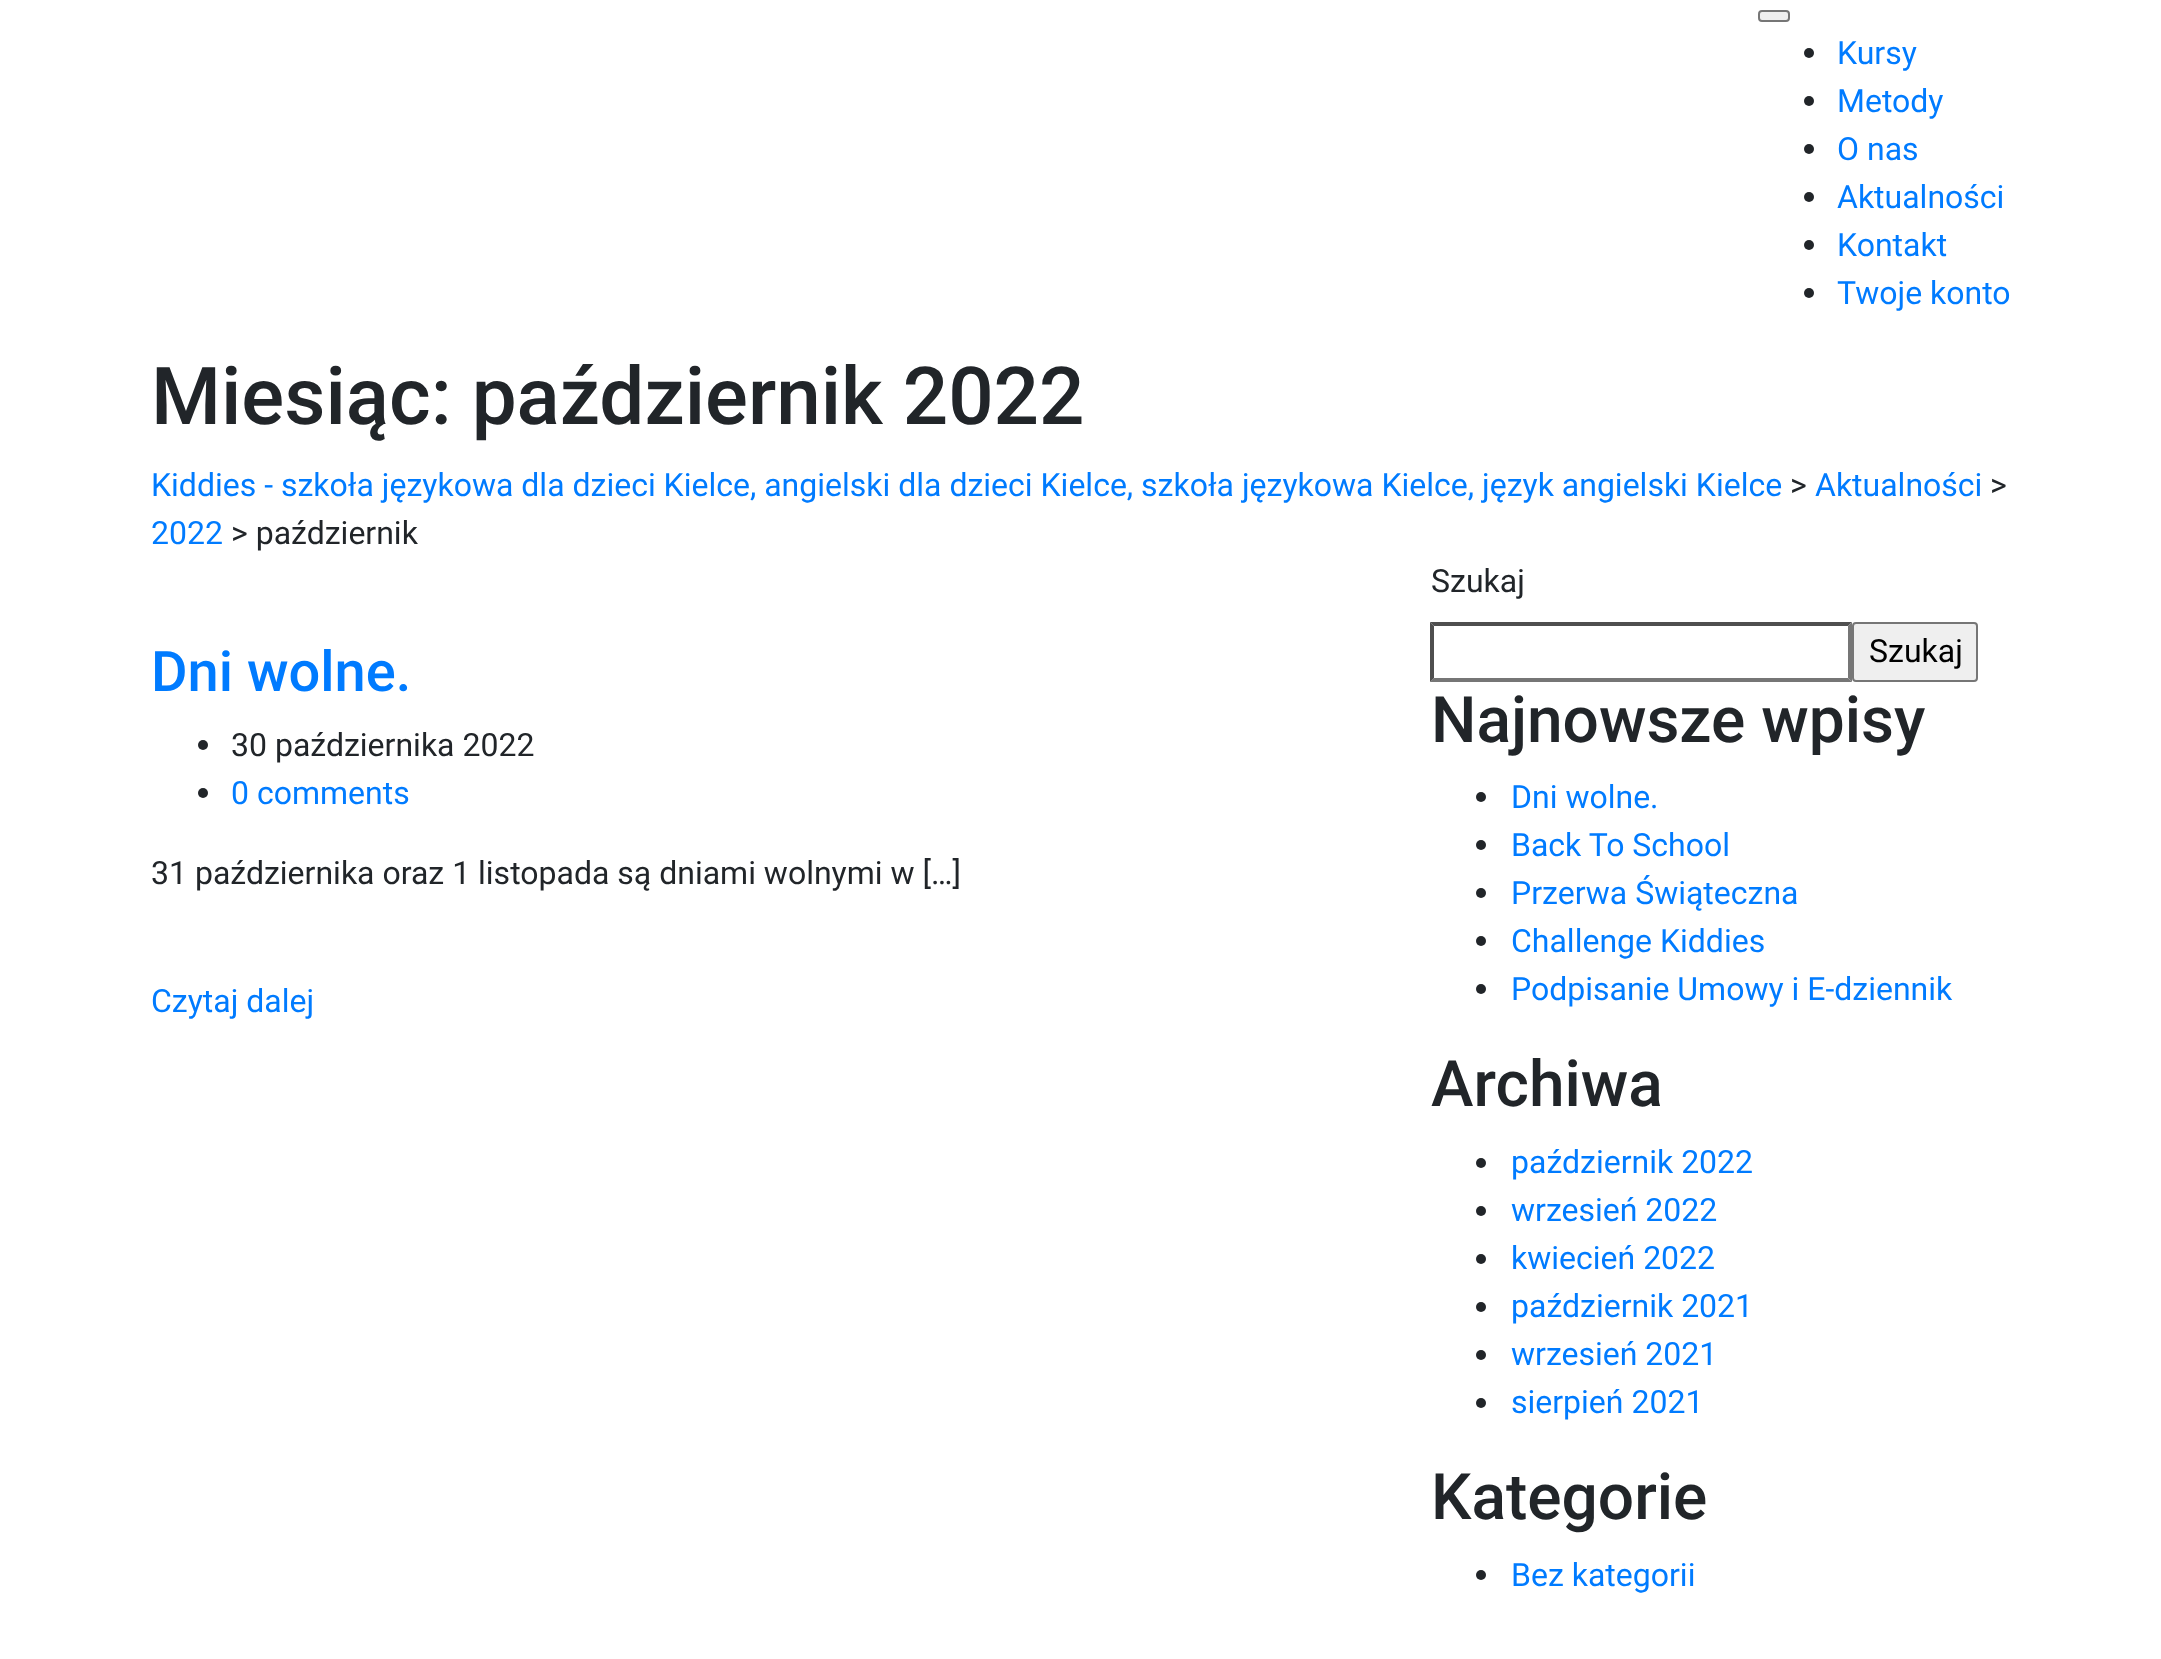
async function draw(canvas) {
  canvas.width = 2161
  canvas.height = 1659
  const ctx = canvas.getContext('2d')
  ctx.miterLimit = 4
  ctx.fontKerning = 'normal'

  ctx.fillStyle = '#fff'
  ctx.fillRect(0, 0, 2161, 1659)
  ctx.fillStyle = '#efefef'
  ctx.beginPath()
  ctx.roundRect(1759, 11, 30, 10, 3)
  ctx.fill()
  ctx.strokeStyle = '#767676'
  ctx.lineWidth = 2
  ctx.stroke()
  ctx.fillStyle = '#212529'
  ctx.beginPath()
  ctx.arc(1809, 53, 5, 0, 2 * Math.PI)
  ctx.fill()
  ctx.font = '32px Roboto'
  ctx.fillStyle = '#007bff'
  ctx.fillText('Kursy', 1837, 64)
  ctx.fillStyle = '#212529'
  ctx.beginPath()
  ctx.arc(1809, 101, 5, 0, 2 * Math.PI)
  ctx.fill()
  ctx.fillStyle = '#007bff'
  ctx.fillText('Metody', 1837, 112)
  ctx.fillStyle = '#212529'
  ctx.beginPath()
  ctx.arc(1809, 149, 5, 0, 2 * Math.PI)
  ctx.fill()
  ctx.fillStyle = '#007bff'
  ctx.fillText('O nas', 1837, 160)
  ctx.fillStyle = '#212529'
  ctx.beginPath()
  ctx.arc(1809, 197, 5, 0, 2 * Math.PI)
  ctx.fill()
  ctx.fillStyle = '#007bff'
  ctx.fillText('Aktualności', 1837, 208)
  ctx.fillStyle = '#212529'
  ctx.beginPath()
  ctx.arc(1809, 245, 5, 0, 2 * Math.PI)
  ctx.fill()
  ctx.fillStyle = '#007bff'
  ctx.fillText('Kontakt', 1837, 256)
  ctx.fillStyle = '#212529'
  ctx.beginPath()
  ctx.arc(1809, 293, 5, 0, 2 * Math.PI)
  ctx.fill()
  ctx.fillStyle = '#007bff'
  ctx.fillText('Twoje konto', 1837, 304)
  ctx.font = '500 80px Roboto'
  ctx.fillStyle = '#212529'
  ctx.fillText('Miesiąc: październik 2022', 151, 424)
  ctx.font = '32px Roboto'
  ctx.fillStyle = '#007bff'
  ctx.fillText('Kiddies - szkoła językowa dla dzieci Kielce, angielski dla dzieci Kielce, szkoła językowa Kielce, język angielski Kielce', 151, 496)
  ctx.fillStyle = '#212529'
  ctx.fillText('>', 1790, 496)
  ctx.fillStyle = '#007bff'
  ctx.fillText('Aktualności', 1815, 496)
  ctx.fillStyle = '#212529'
  ctx.fillText('>', 1990, 496)
  ctx.fillStyle = '#007bff'
  ctx.fillText('2022', 151, 544)
  ctx.fillStyle = '#212529'
  ctx.fillText('> październik', 231, 544)
  ctx.font = '500 56px Roboto'
  ctx.fillStyle = '#007bff'
  ctx.fillText('Dni wolne.', 151, 691)
  ctx.fillStyle = '#212529'
  ctx.beginPath()
  ctx.arc(203, 745, 5, 0, 2 * Math.PI)
  ctx.fill()
  ctx.font = '32px Roboto'
  ctx.fillText('30 października 2022', 231, 756)
  ctx.beginPath()
  ctx.arc(203, 793, 5, 0, 2 * Math.PI)
  ctx.fill()
  ctx.fillStyle = '#007bff'
  ctx.fillText('0 comments', 231, 804)
  ctx.fillStyle = '#212529'
  ctx.fillText('31 października oraz 1 listopada są dniami wolnymi w […]', 151, 884)
  ctx.fillStyle = '#007bff'
  ctx.fillText('Czytaj dalej', 151, 1012)
  ctx.fillStyle = '#212529'
  ctx.fillText('Szukaj', 1431, 592)
  ctx.fillStyle = '#4f4f4f'
  ctx.beginPath()
  ctx.moveTo(1430, 622)
  ctx.lineTo(1852, 622)
  ctx.lineTo(1848, 626)
  ctx.lineTo(1434, 626)
  ctx.closePath()
  ctx.fill()
  ctx.fillStyle = '#767676'
  ctx.beginPath()
  ctx.moveTo(1852, 622)
  ctx.lineTo(1852, 682)
  ctx.lineTo(1848, 678)
  ctx.lineTo(1848, 626)
  ctx.closePath()
  ctx.fill()
  ctx.beginPath()
  ctx.moveTo(1852, 682)
  ctx.lineTo(1430, 682)
  ctx.lineTo(1434, 678)
  ctx.lineTo(1848, 678)
  ctx.closePath()
  ctx.fill()
  ctx.fillStyle = '#4f4f4f'
  ctx.beginPath()
  ctx.moveTo(1430, 682)
  ctx.lineTo(1430, 622)
  ctx.lineTo(1434, 626)
  ctx.lineTo(1434, 678)
  ctx.closePath()
  ctx.fill()
  ctx.fillStyle = '#efefef'
  ctx.beginPath()
  ctx.roundRect(1853, 623, 124, 58, 3)
  ctx.fill()
  ctx.stroke()
  ctx.fillStyle = '#000'
  ctx.fillText('Szukaj', 1869, 662)
  ctx.font = '500 64px Roboto'
  ctx.fillStyle = '#212529'
  ctx.fillText('Najnowsze wpisy', 1431, 742)
  ctx.beginPath()
  ctx.arc(1481, 797, 5, 0, 2 * Math.PI)
  ctx.fill()
  ctx.font = '32px Roboto'
  ctx.fillStyle = '#007bff'
  ctx.fillText('Dni wolne.', 1511, 808)
  ctx.fillStyle = '#212529'
  ctx.beginPath()
  ctx.arc(1481, 845, 5, 0, 2 * Math.PI)
  ctx.fill()
  ctx.fillStyle = '#007bff'
  ctx.fillText('Back To School', 1511, 856)
  ctx.fillStyle = '#212529'
  ctx.beginPath()
  ctx.arc(1481, 893, 5, 0, 2 * Math.PI)
  ctx.fill()
  ctx.fillStyle = '#007bff'
  ctx.fillText('Przerwa Świąteczna', 1511, 904)
  ctx.fillStyle = '#212529'
  ctx.beginPath()
  ctx.arc(1481, 941, 5, 0, 2 * Math.PI)
  ctx.fill()
  ctx.fillStyle = '#007bff'
  ctx.fillText('Challenge Kiddies', 1511, 952)
  ctx.fillStyle = '#212529'
  ctx.beginPath()
  ctx.arc(1481, 989, 5, 0, 2 * Math.PI)
  ctx.fill()
  ctx.fillStyle = '#007bff'
  ctx.fillText('Podpisanie Umowy i E-dziennik', 1511, 1000)
  ctx.font = '500 64px Roboto'
  ctx.fillStyle = '#212529'
  ctx.fillText('Archiwa', 1431, 1106)
  ctx.beginPath()
  ctx.arc(1481, 1163, 5, 0, 2 * Math.PI)
  ctx.fill()
  ctx.font = '32px Roboto'
  ctx.fillStyle = '#007bff'
  ctx.fillText('październik 2022', 1511, 1173)
  ctx.fillStyle = '#212529'
  ctx.beginPath()
  ctx.arc(1481, 1211, 5, 0, 2 * Math.PI)
  ctx.fill()
  ctx.fillStyle = '#007bff'
  ctx.fillText('wrzesień 2022', 1511, 1221)
  ctx.fillStyle = '#212529'
  ctx.beginPath()
  ctx.arc(1481, 1259, 5, 0, 2 * Math.PI)
  ctx.fill()
  ctx.fillStyle = '#007bff'
  ctx.fillText('kwiecień 2022', 1511, 1269)
  ctx.fillStyle = '#212529'
  ctx.beginPath()
  ctx.arc(1481, 1307, 5, 0, 2 * Math.PI)
  ctx.fill()
  ctx.fillStyle = '#007bff'
  ctx.fillText('październik 2021', 1511, 1317)
  ctx.fillStyle = '#212529'
  ctx.beginPath()
  ctx.arc(1481, 1355, 5, 0, 2 * Math.PI)
  ctx.fill()
  ctx.fillStyle = '#007bff'
  ctx.fillText('wrzesień 2021', 1511, 1365)
  ctx.fillStyle = '#212529'
  ctx.beginPath()
  ctx.arc(1481, 1403, 5, 0, 2 * Math.PI)
  ctx.fill()
  ctx.fillStyle = '#007bff'
  ctx.fillText('sierpień 2021', 1511, 1413)
  ctx.font = '500 64px Roboto'
  ctx.fillStyle = '#212529'
  ctx.fillText('Kategorie', 1431, 1519)
  ctx.beginPath()
  ctx.arc(1481, 1575, 5, 0, 2 * Math.PI)
  ctx.fill()
  ctx.font = '32px Roboto'
  ctx.fillStyle = '#007bff'
  ctx.fillText('Bez kategorii', 1511, 1586)
}

draw(document.querySelector('canvas'))
